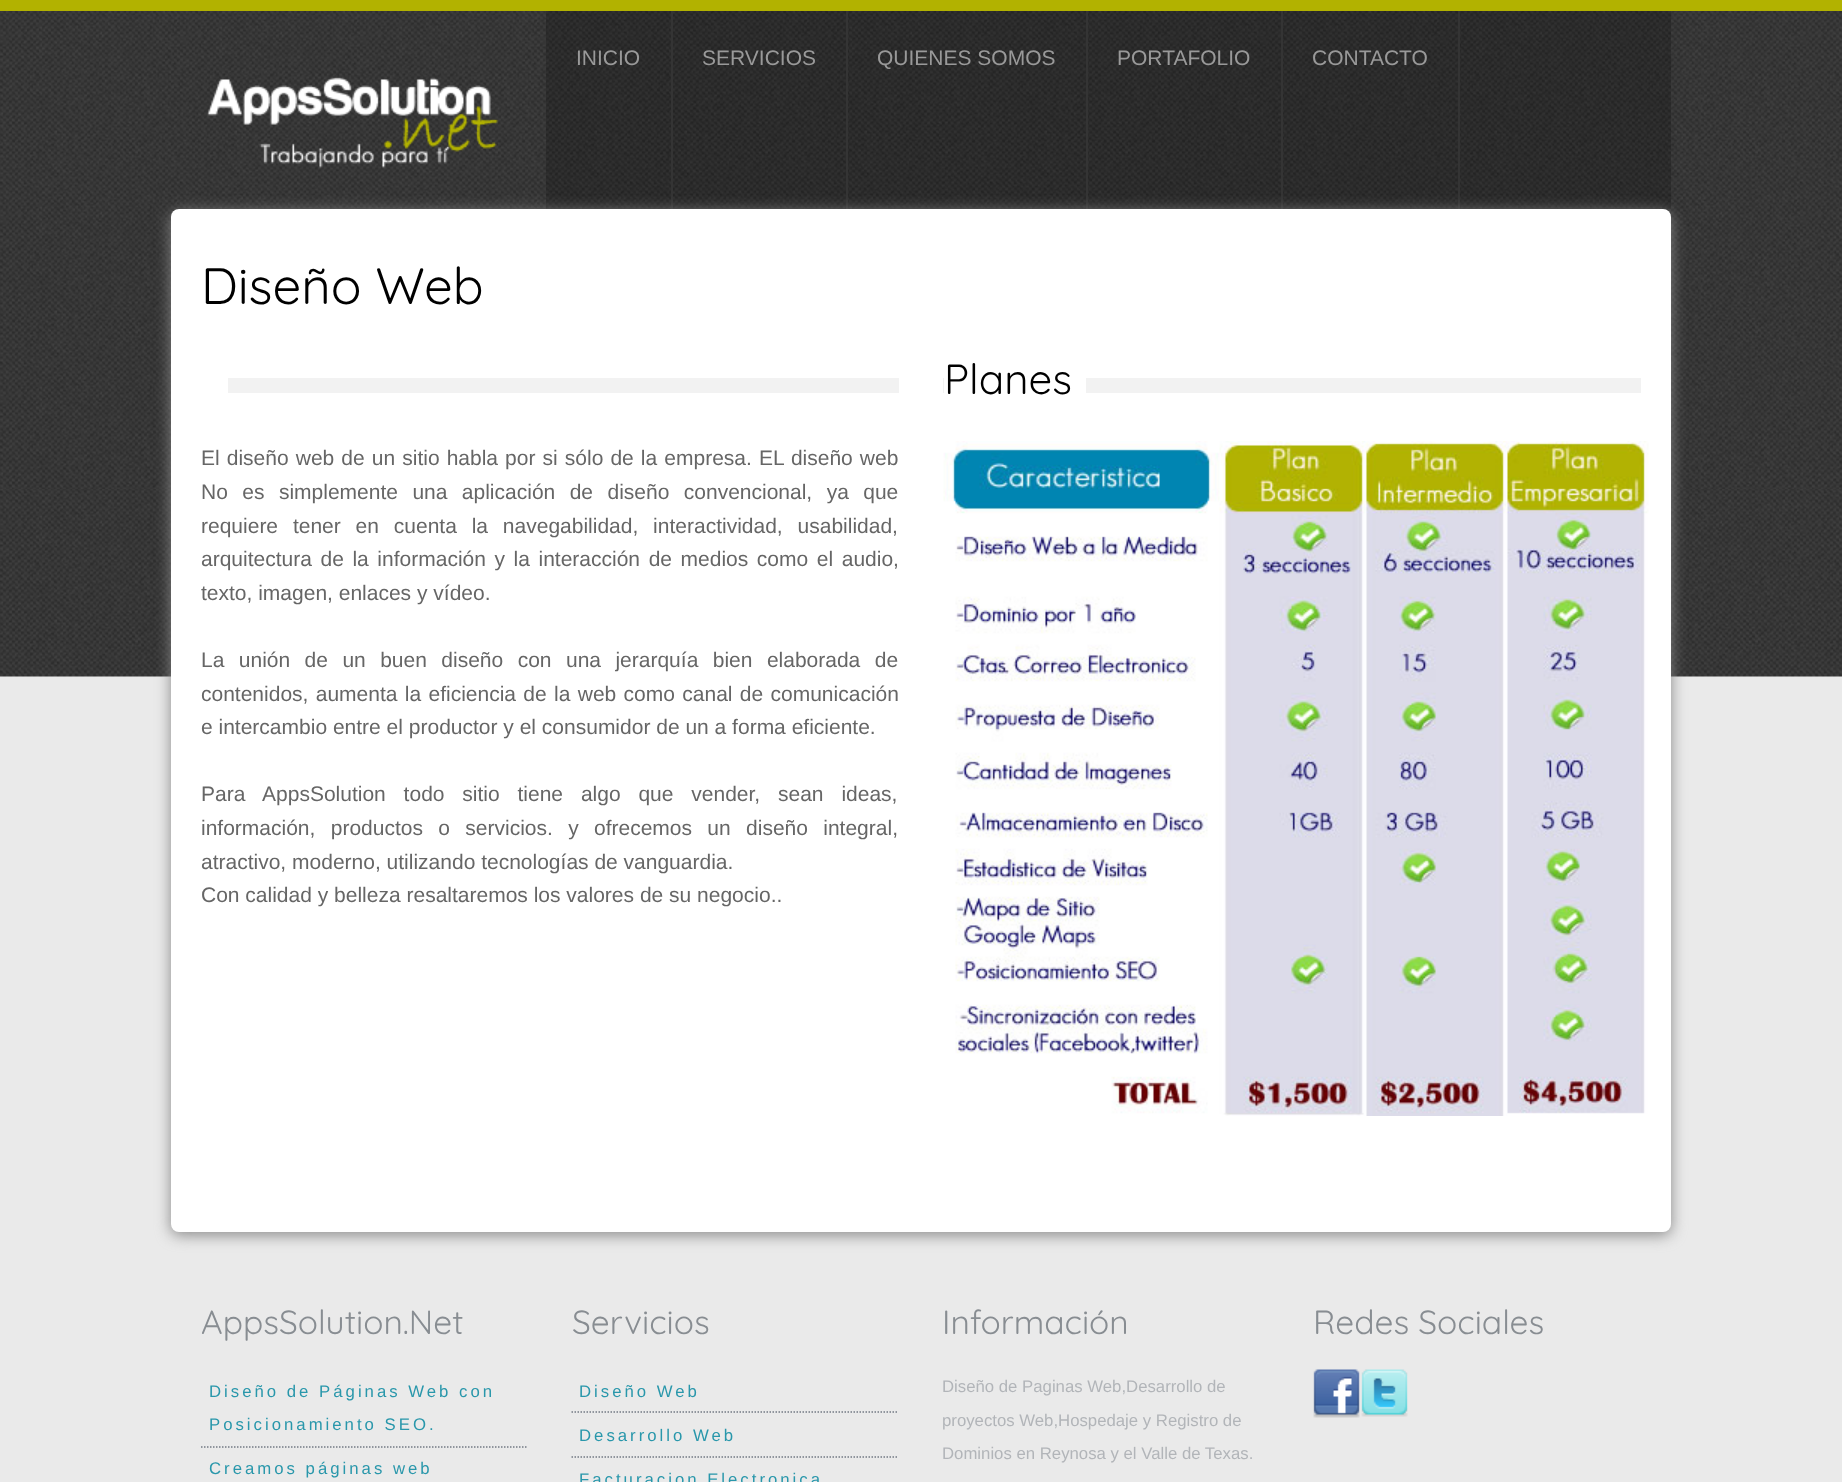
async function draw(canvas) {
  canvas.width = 1842
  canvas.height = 1482
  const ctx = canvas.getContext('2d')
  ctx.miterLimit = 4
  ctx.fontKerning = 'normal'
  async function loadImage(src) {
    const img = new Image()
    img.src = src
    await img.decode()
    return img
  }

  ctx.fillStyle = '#eaeaea'
  ctx.fillRect(0, 0, 1842, 1482)
  ctx.drawImage(await loadImage('image0.png'), 0, 11, 1842, 666)
  ctx.fillStyle = '#b2b200'
  ctx.fillRect(0, 0, 1842, 11)
  ctx.fillStyle = '#00000033'
  ctx.fillRect(546, 11, 1125, 198)
  ctx.fillStyle = '#343434'
  ctx.fillRect(671, 11, 2, 198)
  ctx.font = '21px Liberation Sans'
  ctx.fillStyle = '#999'
  ctx.fillText('INICIO', 576, 65)
  ctx.fillStyle = '#343434'
  ctx.fillRect(846, 11, 2, 198)
  ctx.fillStyle = '#999'
  ctx.fillText('SERVICIOS', 702, 65)
  ctx.fillStyle = '#343434'
  ctx.fillRect(1086, 11, 2, 198)
  ctx.fillStyle = '#999'
  ctx.fillText('QUIENES SOMOS', 877, 65)
  ctx.fillStyle = '#343434'
  ctx.fillRect(1281, 11, 2, 198)
  ctx.fillStyle = '#999'
  ctx.fillText('PORTAFOLIO', 1117, 65)
  ctx.fillStyle = '#343434'
  ctx.fillRect(1458, 11, 2, 198)
  ctx.fillStyle = '#999'
  ctx.fillText('CONTACTO', 1312, 65)
  ctx.drawImage(await loadImage('image1.png'), 207, 77, 292, 92)
  ctx.fillStyle = '#888'
  ctx.filter = 'blur(7.5px)'
  ctx.beginPath()
  ctx.roundRect(171, 212, 1500, 1023, 8)
  ctx.fill()
  ctx.filter = 'none'
  ctx.fillStyle = '#fff'
  ctx.beginPath()
  ctx.roundRect(171, 209, 1500, 1023, 8)
  ctx.fill()
  ctx.font = '300 51px Quicksand'
  ctx.fillStyle = '#000'
  ctx.fillText('Diseño Web', 201, 304)
  ctx.fillStyle = '#f2f2f2'
  ctx.fillRect(943, 378, 698, 15)
  ctx.fillStyle = '#fff'
  ctx.fillRect(944, 378, 142, 15)
  ctx.font = '300 42px Quicksand'
  ctx.fillStyle = '#000'
  ctx.fillText('Planes', 944, 394)
  ctx.drawImage(await loadImage('image2.png'), 943, 441, 706, 675)
  ctx.fillStyle = '#f2f2f2'
  ctx.fillRect(228, 378, 671, 15)
  ctx.wordSpacing = '1.25px'
  ctx.font = '21px Liberation Sans'
  ctx.fillStyle = '#666'
  ctx.fillText('El diseño web de un sitio habla por si sólo de la empresa. EL diseño web', 201, 465)
  ctx.wordSpacing = '8.6px'
  ctx.fillText('No es simplemente una aplicación de diseño convencional, ya que', 201, 499)
  ctx.wordSpacing = '9px'
  ctx.fillText('requiere tener en cuenta la navegabilidad, interactividad, usabilidad,', 201, 533)
  ctx.wordSpacing = '2.75px'
  ctx.fillText('arquitectura de la información y la interacción de medios como el audio,', 201, 566)
  ctx.wordSpacing = '0px'
  ctx.fillText('texto, imagen, enlaces y vídeo.', 201, 600)
  ctx.wordSpacing = '8.6px'
  ctx.fillText('La unión de un buen diseño con una jerarquía bien elaborada de', 201, 667)
  ctx.wordSpacing = '1.5px'
  ctx.fillText('contenidos, aumenta la eficiencia de la web como canal de comunicación', 201, 701)
  ctx.wordSpacing = '0px'
  ctx.fillText('e intercambio entre el productor y el consumidor de un a forma eficiente.', 201, 734)
  ctx.wordSpacing = '12px'
  ctx.fillText('Para AppsSolution todo sitio tiene algo que vender, sean ideas,', 201, 801)
  ctx.wordSpacing = '9.5px'
  ctx.fillText('información, productos o servicios. y ofrecemos un diseño integral,', 201, 835)
  ctx.wordSpacing = '0px'
  ctx.fillText('atractivo, moderno, utilizando tecnologías de vanguardia.', 201, 869)
  ctx.fillText('Con calidad y belleza resaltaremos los valores de su negocio..', 201, 902)
  ctx.font = '300 33.5px Quicksand'
  ctx.fillStyle = '#888d92'
  ctx.fillText('AppsSolution.Net', 201, 1334)
  ctx.beginPath()
  ctx.moveTo(201, 1447)
  ctx.lineTo(526.5, 1447)
  ctx.strokeStyle = '#737a84'
  ctx.lineWidth = 1.5
  ctx.setLineDash([1.5, 1.5])
  ctx.stroke()
  ctx.letterSpacing = '3px'
  ctx.font = '16.75px Liberation Sans'
  ctx.fillStyle = '#2997ab'
  ctx.fillText('Diseño de Páginas Web con', 209, 1397)
  ctx.fillText('Posicionamiento SEO.', 209, 1430)
  ctx.fillText('Creamos páginas web', 209, 1474)
  ctx.letterSpacing = '0px'
  ctx.font = '300 33.5px Quicksand'
  ctx.fillStyle = '#888d92'
  ctx.fillText('Servicios', 572, 1334)
  ctx.beginPath()
  ctx.moveTo(571.5, 1412)
  ctx.lineTo(897, 1412)
  ctx.stroke()
  ctx.letterSpacing = '3px'
  ctx.font = '16.75px Liberation Sans'
  ctx.fillStyle = '#2997ab'
  ctx.fillText('Diseño Web', 579, 1397)
  ctx.beginPath()
  ctx.moveTo(571.5, 1457)
  ctx.lineTo(897, 1457)
  ctx.stroke()
  ctx.fillText('Desarrollo Web', 579, 1441)
  ctx.fillText('Facturacion Electronica', 579, 1485)
  ctx.letterSpacing = '0px'
  ctx.font = '300 33.5px Quicksand'
  ctx.fillStyle = '#888d92'
  ctx.fillText('Información', 942, 1334)
  ctx.font = '16.75px Liberation Sans'
  ctx.fillStyle = '#b2b5b9'
  ctx.fillText('Diseño de Paginas Web,Desarrollo de', 942, 1392)
  ctx.fillText('proyectos Web,Hospedaje y Registro de', 942, 1426)
  ctx.fillText('Dominios en Reynosa y el Valle de Texas.', 942, 1459)
  ctx.font = '300 33.5px Quicksand'
  ctx.fillStyle = '#888d92'
  ctx.fillText('Redes Sociales', 1313, 1334)
  ctx.drawImage(await loadImage('image3.png'), 1313, 1369, 47, 49)
  ctx.drawImage(await loadImage('image4.png'), 1361, 1369, 47, 48)
}

draw(document.querySelector('canvas'))
